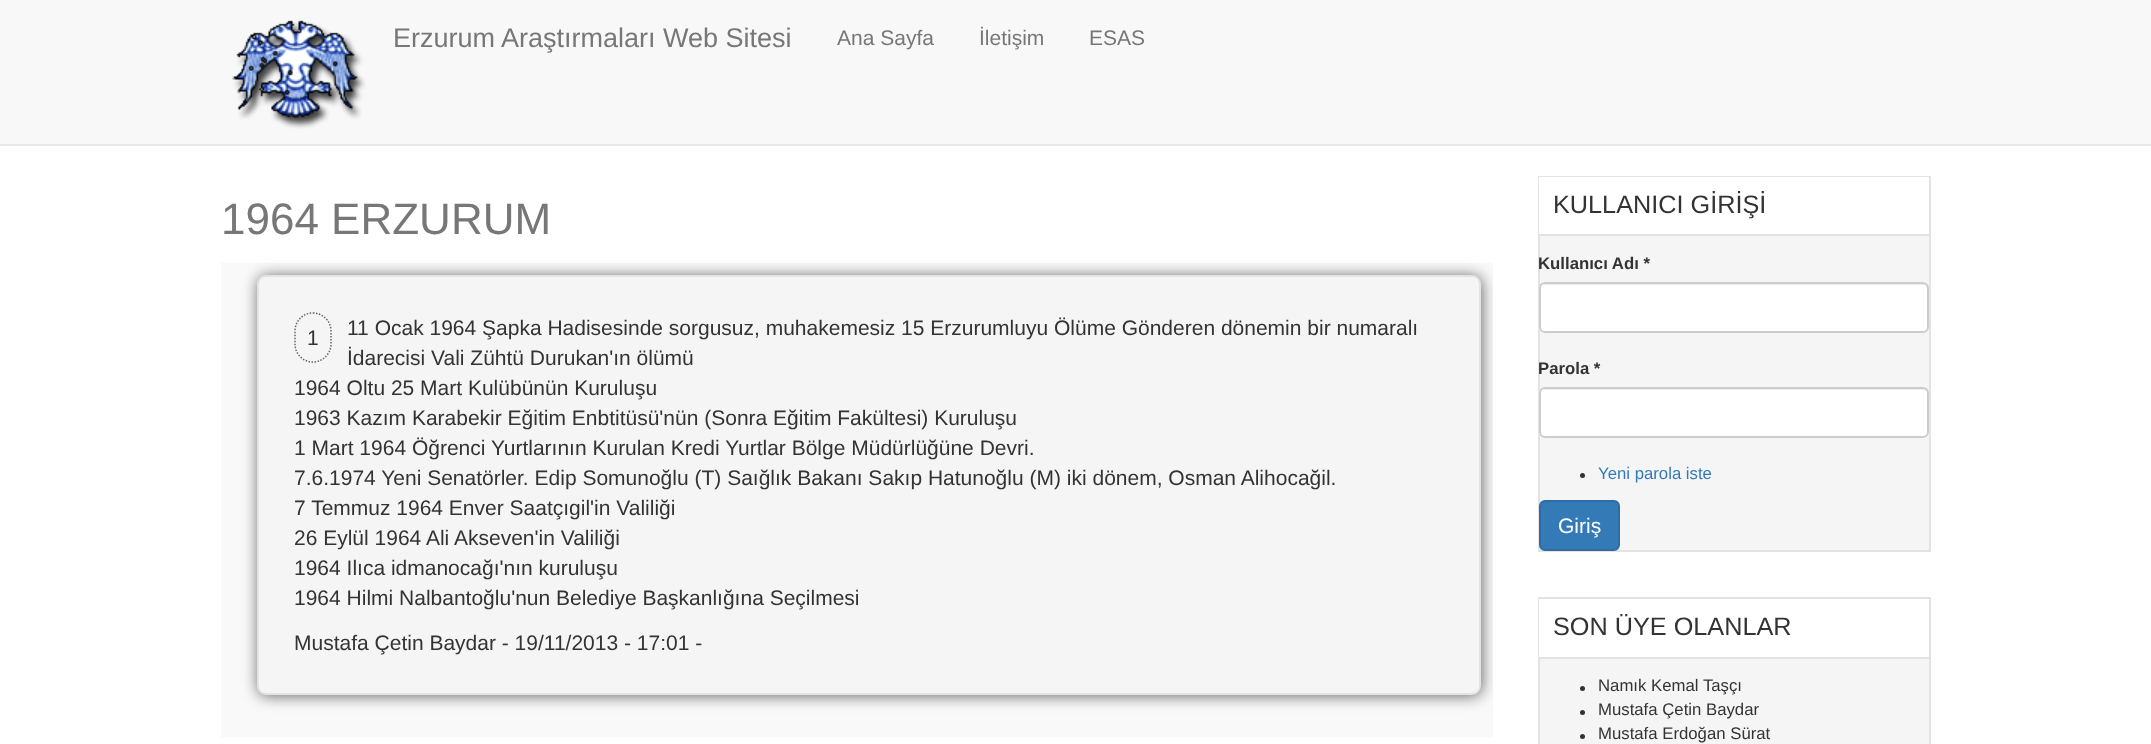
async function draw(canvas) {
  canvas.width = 2151
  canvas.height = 744
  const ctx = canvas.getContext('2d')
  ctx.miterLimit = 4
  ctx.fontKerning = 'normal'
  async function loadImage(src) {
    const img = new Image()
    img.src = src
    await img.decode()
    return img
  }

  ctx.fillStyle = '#fff'
  ctx.fillRect(0, 0, 2151, 744)
  ctx.fillStyle = '#f8f8f8'
  ctx.fillRect(0, 0, 2151, 144)
  ctx.fillStyle = '#e7e7e7'
  ctx.fillRect(0, 144, 2151, 2)
  ctx.drawImage(await loadImage('image0.png'), 232, 20, 134, 109)
  ctx.font = '27px Liberation Sans'
  ctx.fillStyle = '#777'
  ctx.fillText('Erzurum Araştırmaları Web Sitesi', 393, 47)
  ctx.font = '21px Liberation Sans'
  ctx.fillText('Ana Sayfa', 837, 45)
  ctx.fillText('İletişim', 979, 45)
  ctx.fillText('ESAS', 1089, 45)
  ctx.font = '44px Liberation Sans'
  ctx.fillText('1964 ERZURUM', 221, 234)
  ctx.fillStyle = '#f9f9f9'
  ctx.fillRect(221, 263, 1272, 474)
  ctx.save()
  ctx.beginPath()
  ctx.rect(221, 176, 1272, 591)
  ctx.clip()
  ctx.fillStyle = '#666'
  ctx.filter = 'blur(7.5px)'
  ctx.beginPath()
  ctx.roundRect(258, 276, 1224, 420, 9)
  ctx.fill()
  ctx.filter = 'none'
  ctx.restore()
  ctx.fillStyle = '#f5f5f5'
  ctx.beginPath()
  ctx.roundRect(258, 276, 1222, 418, 8)
  ctx.fill()
  ctx.strokeStyle = '#e3e3e3'
  ctx.lineWidth = 2
  ctx.stroke()
  ctx.font = '21px Liberation Sans'
  ctx.fillStyle = '#333'
  ctx.fillText('11 Ocak 1964 Şapka Hadisesinde sorgusuz, muhakemesiz 15 Erzurumluyu Ölüme Gönderen dönemin bir numaralı', 347, 335)
  ctx.fillText('İdarecisi Vali Zühtü Durukan\'ın ölümü', 347, 365)
  ctx.fillText('1964 Oltu 25 Mart Kulübünün Kuruluşu', 294, 395)
  ctx.fillText('1963 Kazım Karabekir Eğitim Enbtitüsü\'nün (Sonra Eğitim Fakültesi) Kuruluşu', 294, 425)
  ctx.fillText('1 Mart 1964 Öğrenci Yurtlarının Kurulan Kredi Yurtlar Bölge Müdürlüğüne Devri.', 294, 455)
  ctx.fillText('7.6.1974 Yeni Senatörler. Edip Somunoğlu (T) Saığlık Bakanı Sakıp Hatunoğlu (M) iki dönem, Osman Alihocağil.', 294, 485)
  ctx.fillText('7 Temmuz 1964 Enver Saatçıgil\'in Valiliği', 294, 515)
  ctx.fillText('26 Eylül 1964 Ali Akseven\'in Valiliği', 294, 545)
  ctx.fillText('1964 Ilıca idmanocağı\'nın kuruluşu', 294, 575)
  ctx.fillText('1964 Hilmi Nalbantoğlu\'nun Belediye Başkanlığına Seçilmesi', 294, 605)
  ctx.beginPath()
  ctx.moveTo(313, 313)
  ctx.bezierCurveTo(322.5, 313, 331, 321, 331, 331)
  ctx.lineTo(331, 344)
  ctx.bezierCurveTo(331, 354, 322.5, 362, 313, 362)
  ctx.bezierCurveTo(303, 362, 295, 354, 295, 344)
  ctx.lineTo(295, 331)
  ctx.bezierCurveTo(295, 321, 303, 313, 313, 313)
  ctx.closePath()
  ctx.strokeStyle = '#666'
  ctx.lineWidth = 1.5
  ctx.setLineDash([1.5, 1.5])
  ctx.stroke()
  ctx.fillText('1', 307, 345)
  ctx.fillText('Mustafa Çetin Baydar - 19/11/2013 - 17:01 -', 294, 650)
  ctx.fillStyle = '#f5f5f5'
  ctx.fillRect(1540, 236, 389, 314)
  ctx.strokeStyle = '#e3e3e3'
  ctx.lineWidth = 2
  ctx.setLineDash([])
  ctx.strokeRect(1539, 177, 391, 374)
  ctx.fillStyle = '#fff'
  ctx.fillRect(1539, 177, 390, 57)
  ctx.fillStyle = '#e3e3e3'
  ctx.fillRect(1539, 234, 390, 2)
  ctx.font = '25.25px Liberation Sans'
  ctx.fillStyle = '#333'
  ctx.fillText('KULLANICI GİRİŞİ', 1553, 213)
  ctx.font = 'bold 16.75px Liberation Sans'
  ctx.fillText('Kullanıcı Adı *', 1538, 269)
  ctx.fillStyle = '#fff'
  ctx.beginPath()
  ctx.roundRect(1539, 282, 390, 51, 6)
  ctx.fill()
  ctx.fillStyle = '#ececec'
  ctx.beginPath()
  ctx.moveTo(1545, 285)
  ctx.lineTo(1923, 285)
  ctx.bezierCurveTo(1925, 285, 1928, 287, 1928, 290)
  ctx.lineTo(1928, 289)
  ctx.bezierCurveTo(1928, 286, 1926, 284, 1923, 284)
  ctx.lineTo(1546, 284)
  ctx.bezierCurveTo(1544, 284, 1543, 285, 1542, 286)
  ctx.closePath()
  ctx.fill()
  ctx.beginPath()
  ctx.roundRect(1540, 283, 388, 49, 5)
  ctx.strokeStyle = '#ccc'
  ctx.stroke()
  ctx.fillStyle = '#333'
  ctx.fillText('Parola *', 1538, 374)
  ctx.fillStyle = '#fff'
  ctx.beginPath()
  ctx.roundRect(1539, 387, 390, 51, 6)
  ctx.fill()
  ctx.fillStyle = '#ececec'
  ctx.beginPath()
  ctx.moveTo(1545, 390)
  ctx.lineTo(1923, 390)
  ctx.bezierCurveTo(1925, 390, 1928, 392, 1928, 394)
  ctx.bezierCurveTo(1928, 391, 1926, 389, 1923, 389)
  ctx.lineTo(1546, 389)
  ctx.bezierCurveTo(1544, 389, 1543, 390, 1542, 391)
  ctx.closePath()
  ctx.fill()
  ctx.beginPath()
  ctx.roundRect(1540, 388, 388, 49, 5)
  ctx.stroke()
  ctx.fillStyle = '#333'
  ctx.beginPath()
  ctx.arc(1582.5, 475.5, 2.5, 0, 2 * Math.PI)
  ctx.fill()
  ctx.font = '16.75px Liberation Sans'
  ctx.fillStyle = '#337ab7'
  ctx.fillText('Yeni parola iste', 1598, 479)
  ctx.beginPath()
  ctx.roundRect(1540, 501, 79, 49, 5)
  ctx.fill()
  ctx.strokeStyle = '#2e6da4'
  ctx.stroke()
  ctx.font = '21px Liberation Sans'
  ctx.fillStyle = '#fff'
  ctx.fillText('Giriş', 1558, 533)
  ctx.fillStyle = '#f5f5f5'
  ctx.fillRect(1540, 659, 389, 85)
  ctx.strokeStyle = '#e3e3e3'
  ctx.strokeRect(1539, 598, 391, 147)
  ctx.fillStyle = '#fff'
  ctx.fillRect(1539, 599, 1, 58)
  ctx.fillStyle = '#e3e3e3'
  ctx.fillRect(1539, 657, 390, 2)
  ctx.font = '25.25px Liberation Sans'
  ctx.fillStyle = '#333'
  ctx.fillText('SON ÜYE OLANLAR', 1553, 635)
  ctx.beginPath()
  ctx.arc(1582.5, 688.5, 2.5, 0, 2 * Math.PI)
  ctx.fill()
  ctx.font = '16.75px Liberation Sans'
  ctx.fillText('Namık Kemal Taşçı', 1598, 691)
  ctx.beginPath()
  ctx.arc(1582.5, 712.5, 2.5, 0, 2 * Math.PI)
  ctx.fill()
  ctx.fillText('Mustafa Çetin Baydar', 1598, 715)
  ctx.beginPath()
  ctx.arc(1582.5, 736.5, 2.5, 0, 2 * Math.PI)
  ctx.fill()
  ctx.fillText('Mustafa Erdoğan Sürat', 1598, 739)
}

draw(document.querySelector('canvas'))
